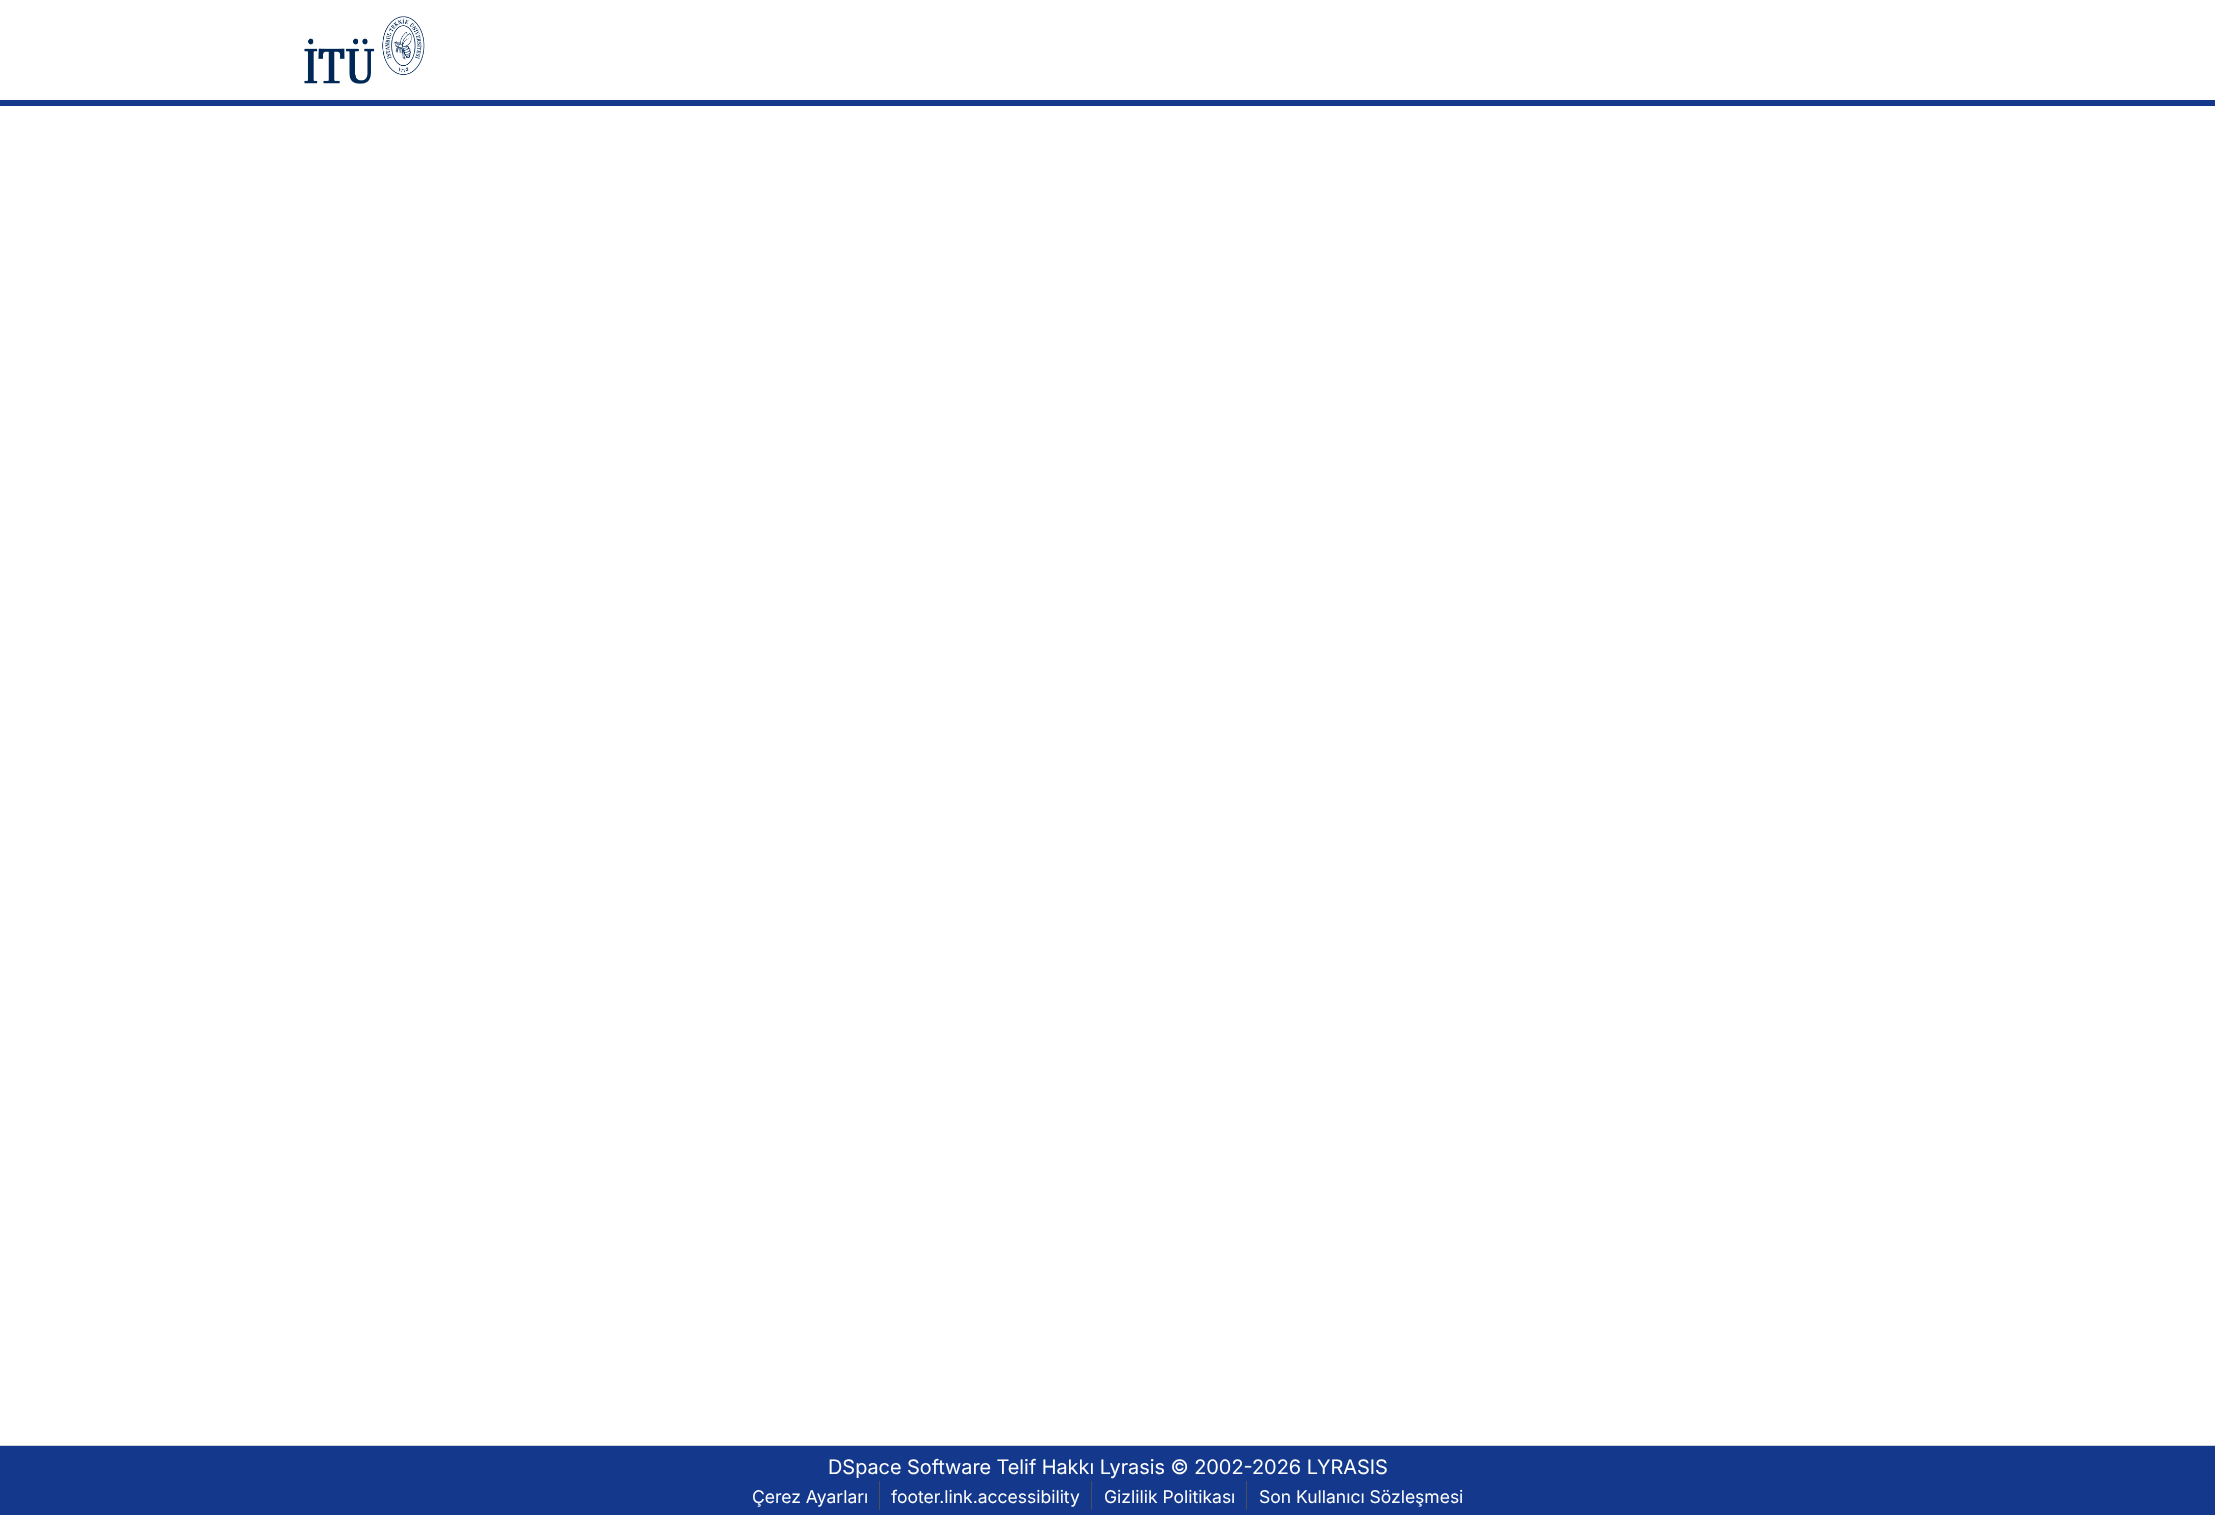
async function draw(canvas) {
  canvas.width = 2215
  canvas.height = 1515
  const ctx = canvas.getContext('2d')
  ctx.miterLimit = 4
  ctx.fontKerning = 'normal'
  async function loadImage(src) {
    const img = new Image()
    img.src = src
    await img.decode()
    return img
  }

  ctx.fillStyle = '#fff'
  ctx.fillRect(0, 0, 2215, 1515)
  ctx.fillStyle = '#13388c'
  ctx.fillRect(0, 100, 2215, 6)
  ctx.drawImage(await loadImage('image0.png'), 304, 16, 121, 68)
  ctx.fillRect(0, 1446, 2215, 69)
  ctx.fillStyle = '#ced4da'
  ctx.fillRect(0, 1445, 2215, 1)
  ctx.font = '20px Inter'
  ctx.fillStyle = '#fff'
  ctx.fillText('DSpace Software Telif Hakkı Lyrasis © 2002-2026 LYRASIS', 828, 1474)
  ctx.font = '17.5px "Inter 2"'
  ctx.fillText('Çerez Ayarları', 752, 1503)
  ctx.fillStyle = '#495057'
  ctx.fillRect(879, 1481, 1, 29)
  ctx.fillStyle = '#fff'
  ctx.fillText('footer.link.accessibility', 891, 1503)
  ctx.fillStyle = '#495057'
  ctx.fillRect(1091, 1481, 1, 29)
  ctx.fillStyle = '#fff'
  ctx.fillText('Gizlilik Politikası', 1104, 1503)
  ctx.fillStyle = '#495057'
  ctx.fillRect(1246, 1481, 1, 29)
  ctx.fillStyle = '#fff'
  ctx.fillText('Son Kullanıcı Sözleşmesi', 1259, 1503)
}

draw(document.querySelector('canvas'))
